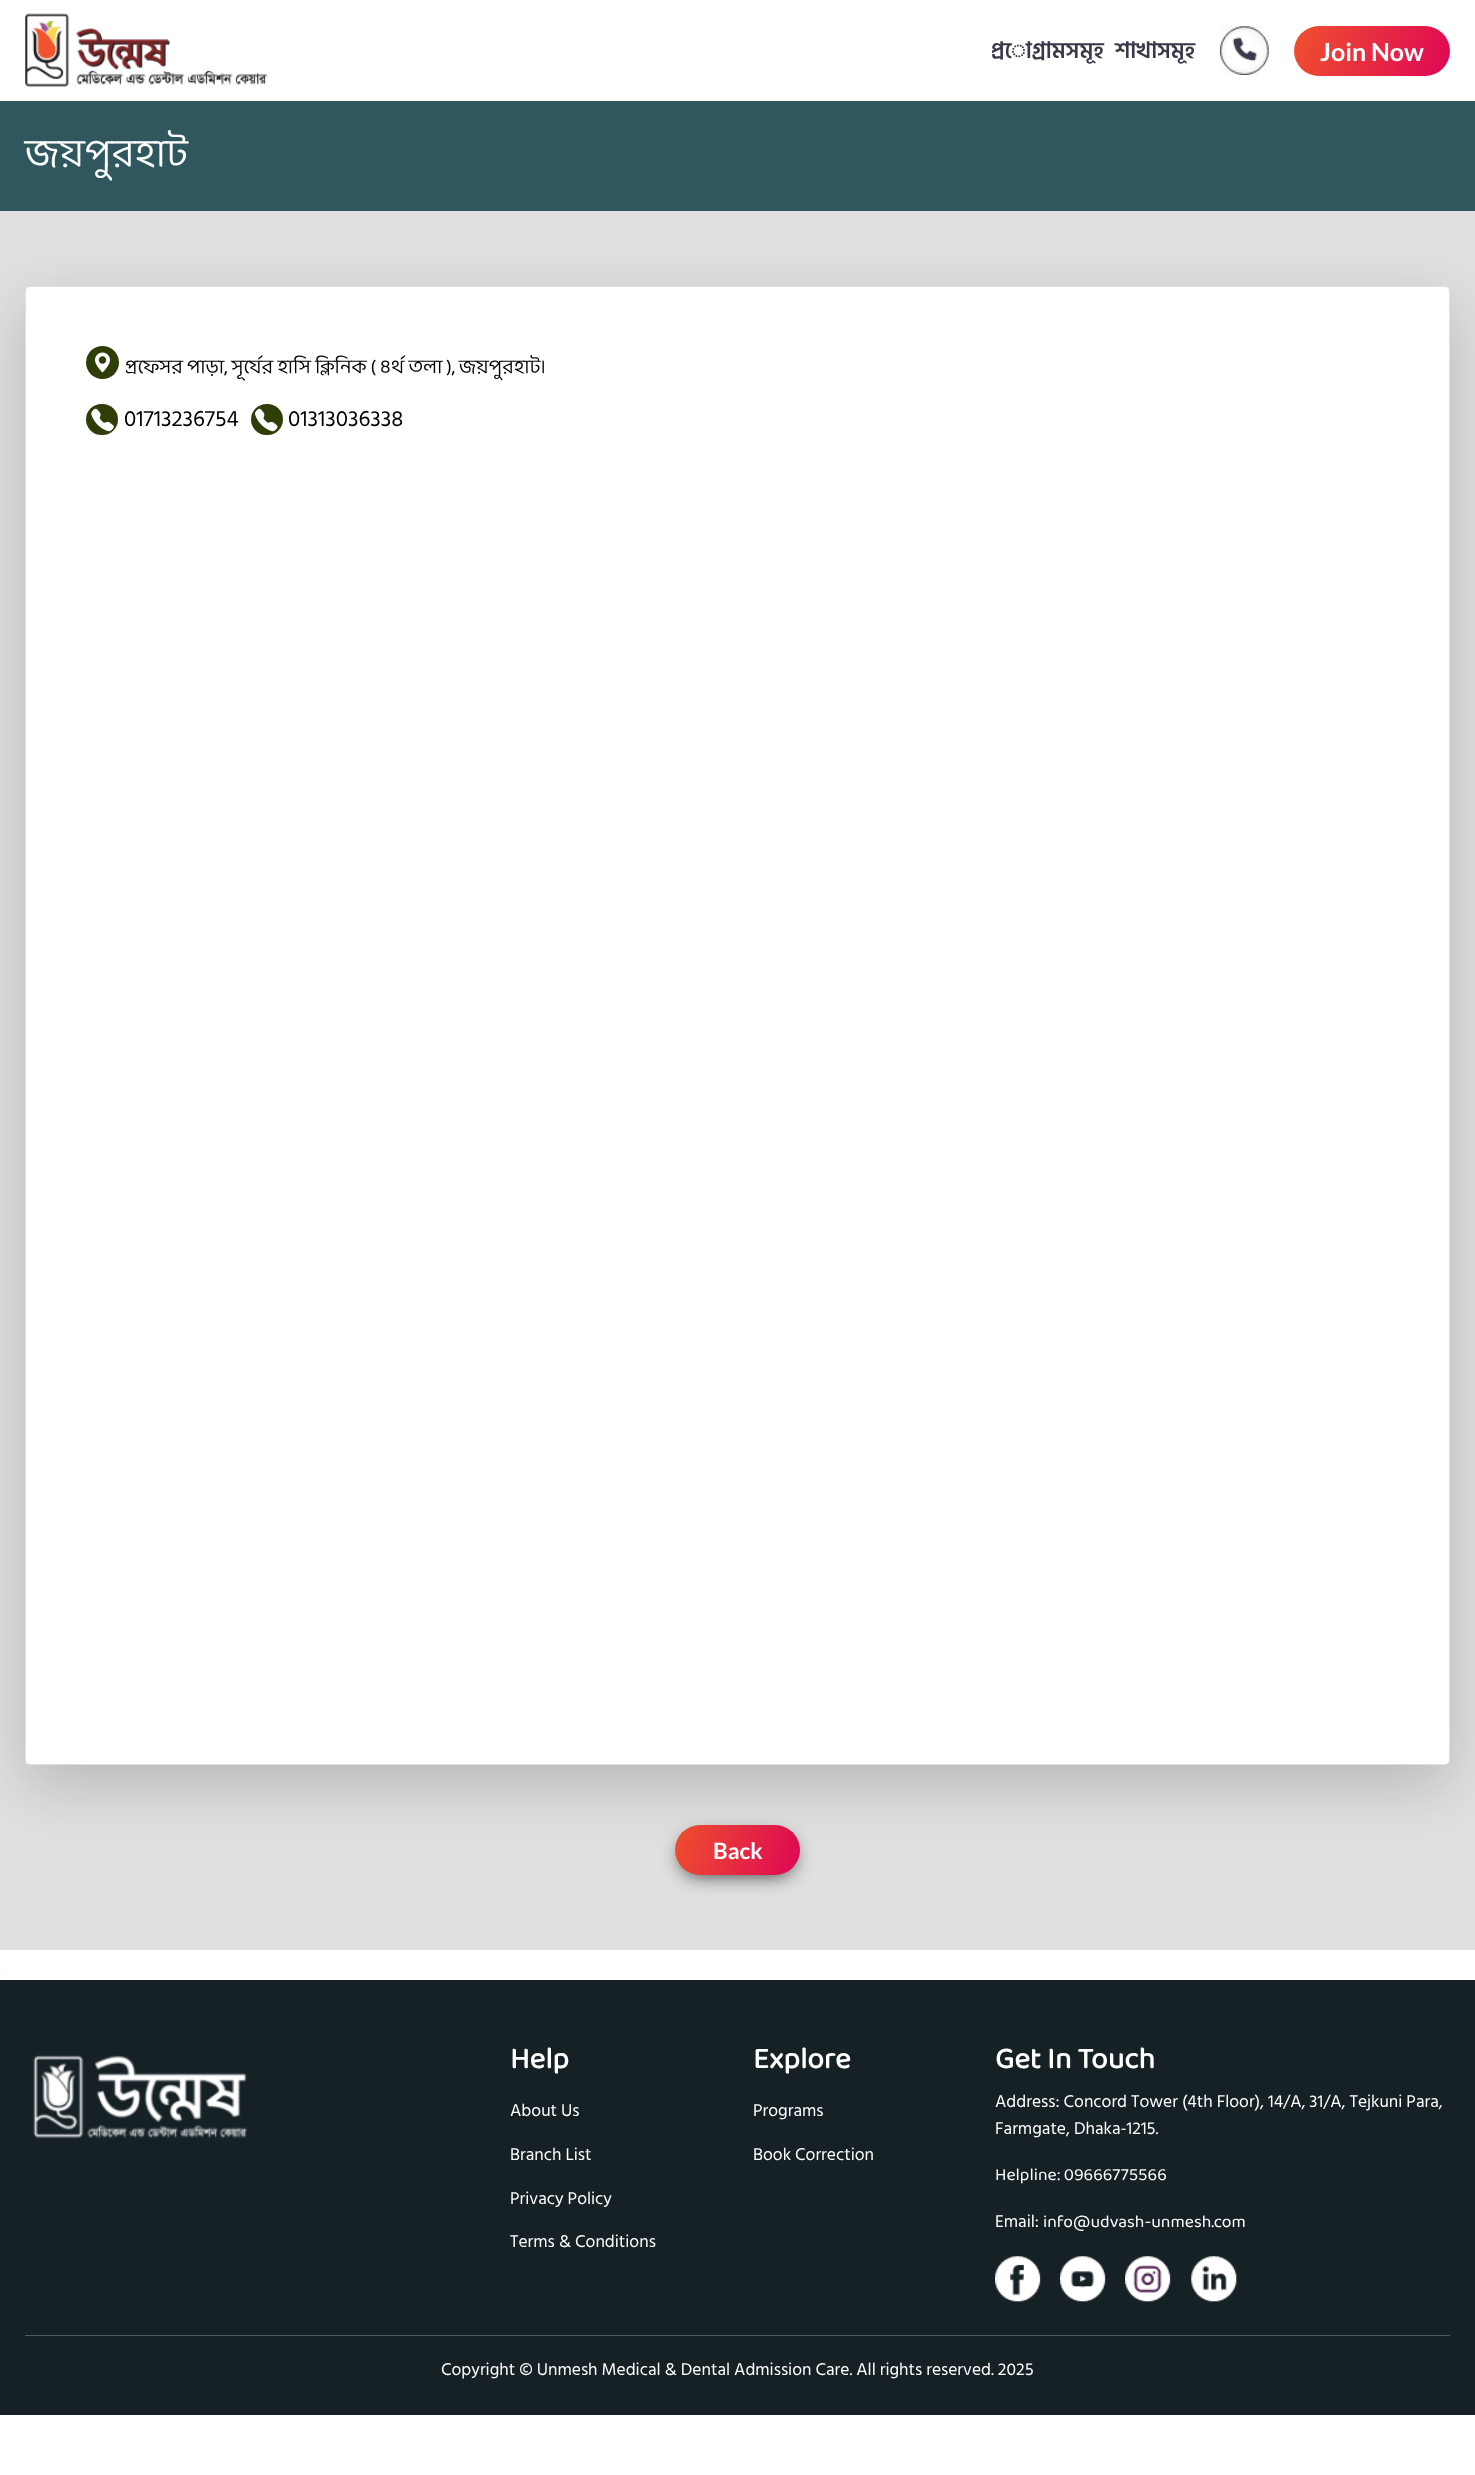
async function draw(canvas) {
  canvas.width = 1475
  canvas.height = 2475
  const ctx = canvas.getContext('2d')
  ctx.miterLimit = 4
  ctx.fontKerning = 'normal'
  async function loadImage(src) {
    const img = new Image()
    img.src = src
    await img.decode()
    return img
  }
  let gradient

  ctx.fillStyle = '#fff'
  ctx.fillRect(0, 0, 1475, 2475)
  ctx.drawImage(await loadImage('image0.png'), 25, 13, 243, 74)
  ctx.font = '600 22.5px Hind Siliguri'
  ctx.fillStyle = '#3b3849'
  ctx.fillText('প্রোগ্রামসমূহ', 991, 58)
  ctx.fillText('শাখাসমূহ', 1115, 58)
  ctx.drawImage(await loadImage('image1.png'), 1220, 26, 49, 49)
  gradient = ctx.createLinearGradient(1295, 23, 1449, 79)
  gradient.addColorStop(0, '#ef512e')
  gradient.addColorStop(1, '#de0655')
  ctx.fillStyle = gradient
  ctx.beginPath()
  ctx.roundRect(1294, 26, 156, 50, 25)
  ctx.fill()
  ctx.font = 'bold 25px Lato'
  ctx.fillStyle = '#fff'
  ctx.fillText('Join Now', 1320, 61)
  ctx.fillStyle = '#2f575d'
  ctx.fillRect(0, 101, 1475, 110)
  ctx.font = '40px "Baloo Da 2"'
  ctx.fillStyle = '#fff'
  ctx.fillText('জয়পুরহাট', 25, 166)
  ctx.fillStyle = '#e0e0e0'
  ctx.fillRect(0, 211, 1475, 1739)
  ctx.fillStyle = '#000000c7'
  ctx.filter = 'blur(9.5px)'
  ctx.beginPath()
  ctx.roundRect(681, 1838, 113, 37, 18.5)
  ctx.fill()
  ctx.filter = 'none'
  gradient = ctx.createLinearGradient(674, 1827, 801, 1873)
  gradient.addColorStop(0, '#ef512e')
  gradient.addColorStop(1, '#de0655')
  ctx.fillStyle = gradient
  ctx.beginPath()
  ctx.roundRect(675, 1825, 125, 50, 25)
  ctx.fill()
  ctx.fillStyle = '#0000002e'
  ctx.filter = 'blur(30px)'
  ctx.beginPath()
  ctx.roundRect(25, 306, 1425, 1479, 5)
  ctx.fill()
  ctx.filter = 'none'
  ctx.fillStyle = '#fff'
  ctx.beginPath()
  ctx.roundRect(25, 286, 1425, 1479, 5)
  ctx.fill()
  ctx.beginPath()
  ctx.roundRect(25.5, 286.5, 1424, 1478, 4.5)
  ctx.strokeStyle = '#0000001f'
  ctx.stroke()
  ctx.fillStyle = '#2f3e09'
  ctx.beginPath()
  ctx.arc(102.5, 362.5, 16.5, 0, 2 * Math.PI)
  ctx.fill()
  ctx.drawImage(await loadImage('image2.png'), 95, 352, 15, 21)
  ctx.font = '20px "Baloo Da 2"'
  ctx.fillStyle = '#000'
  ctx.fillText('প্রফেসর পাড়া, সূর্যের হাসি ক্লিনিক ( ৪র্থ তলা ), জয়পুরহাট।', 125, 373)
  ctx.fillStyle = '#2f3e09'
  ctx.beginPath()
  ctx.roundRect(86, 404, 32, 31, 15.5)
  ctx.fill()
  ctx.drawImage(await loadImage('image3.png'), 91, 408, 23, 24)
  ctx.font = '22.5px Hind Siliguri'
  ctx.fillStyle = '#000'
  ctx.fillText('01713236754', 124, 426)
  ctx.fillStyle = '#2f3e09'
  ctx.beginPath()
  ctx.roundRect(251, 404, 32, 31, 15.5)
  ctx.fill()
  ctx.drawImage(await loadImage('image4.png'), 255, 408, 23, 24)
  ctx.fillStyle = '#000'
  ctx.fillText('01313036338', 288, 426)
  ctx.font = 'bold 22.5px Lato'
  ctx.fillStyle = '#fff'
  ctx.fillText('Back', 713, 1859)
  ctx.fillStyle = '#f1f1f1'
  ctx.fillRect(0, 1969, 1, 1)
  ctx.fillStyle = '#162126'
  ctx.fillRect(0, 1980, 1475, 435)
  ctx.drawImage(await loadImage('image5.png'), 33, 2055, 215, 84)
  ctx.font = 'bold 30px "Baloo Da 2"'
  ctx.fillStyle = '#fff'
  ctx.fillText('Help', 510, 2068)
  ctx.font = '17.5px Hind Siliguri'
  ctx.fillText('About Us', 510, 2116)
  ctx.fillText('Branch List', 510, 2160)
  ctx.fillText('Privacy Policy', 510, 2204)
  ctx.fillText('Terms & Conditions', 510, 2247)
  ctx.font = 'bold 30px "Baloo Da 2"'
  ctx.fillText('Explore', 753, 2068)
  ctx.font = '17.5px Hind Siliguri'
  ctx.fillText('Programs', 753, 2116)
  ctx.fillText('Book Correction', 753, 2160)
  ctx.font = 'bold 30px "Baloo Da 2"'
  ctx.fillText('Get In Touch', 995, 2068)
  ctx.font = '17.5px Hind Siliguri'
  ctx.fillText('Address: Concord Tower (4th Floor), 14/A, 31/A, Tejkuni Para,', 995, 2107)
  ctx.fillText('Farmgate, Dhaka-1215.', 995, 2134)
  ctx.font = '17.5px "Baloo Da 2"'
  ctx.fillText('Helpline: 09666775566', 995, 2180)
  ctx.font = '17.5px Hind Siliguri'
  ctx.fillText('Email:', 995, 2227)
  ctx.font = '17.5px "Baloo Da 2"'
  ctx.fillText('info@udvash-unmesh.com', 1043, 2227)
  ctx.drawImage(await loadImage('image6.png'), 995, 2256, 46, 46)
  ctx.drawImage(await loadImage('image7.png'), 1060, 2256, 46, 46)
  ctx.drawImage(await loadImage('image8.png'), 1125, 2256, 46, 46)
  ctx.drawImage(await loadImage('image9.png'), 1191, 2256, 46, 46)
  ctx.fillStyle = '#50595c'
  ctx.fillRect(25, 2335, 1425, 1)
  ctx.font = '17.5px Hind Siliguri'
  ctx.fillStyle = '#fff'
  ctx.fillText('Copyright © Unmesh Medical & Dental Admission Care. All rights reserved. 2025', 441, 2375)
}

draw(document.querySelector('canvas'))
